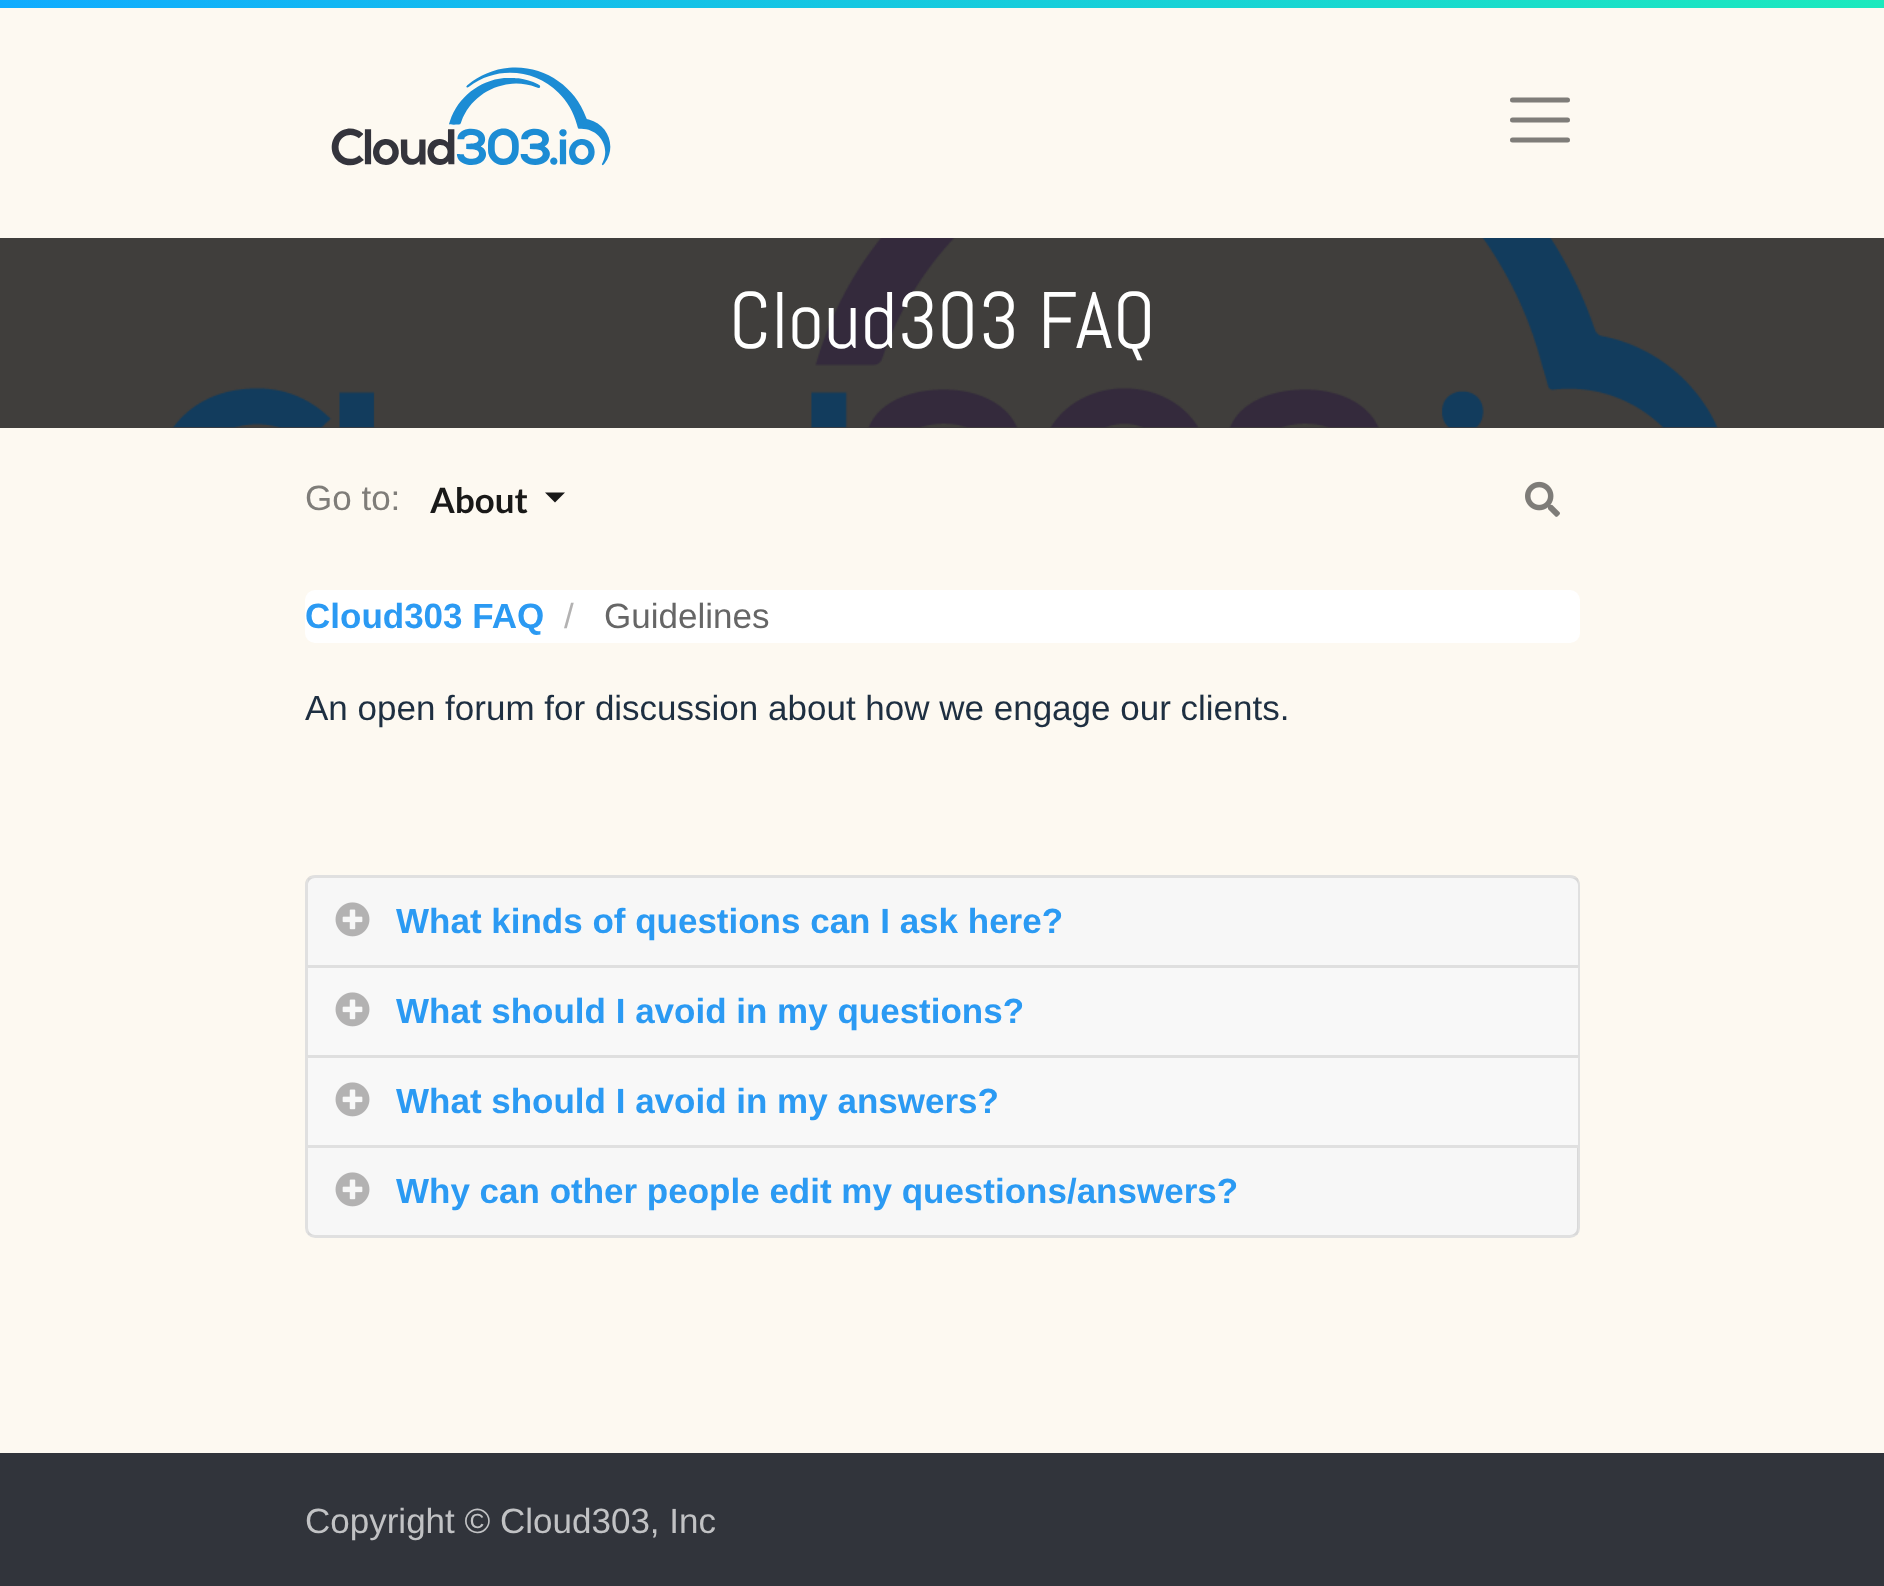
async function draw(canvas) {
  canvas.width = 1884
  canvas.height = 1586
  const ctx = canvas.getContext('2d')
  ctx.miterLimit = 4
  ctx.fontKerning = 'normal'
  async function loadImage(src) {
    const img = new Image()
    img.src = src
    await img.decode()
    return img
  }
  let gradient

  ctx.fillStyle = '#fdf9f1'
  ctx.fillRect(0, 0, 1884, 1586)
  gradient = ctx.createLinearGradient(820, 322, 1065, -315)
  gradient.addColorStop(0, '#10abff')
  gradient.addColorStop(1, '#1beabd')
  ctx.fillStyle = gradient
  ctx.fillRect(0, 0, 1884, 8)
  ctx.drawImage(await loadImage('image0.png'), 331, 67, 280, 99)
  ctx.beginPath()
  ctx.moveTo(1512.5, 100)
  ctx.lineTo(1567.5, 100)
  ctx.moveTo(1512.5, 120)
  ctx.lineTo(1567.5, 120)
  ctx.moveTo(1512.5, 140)
  ctx.lineTo(1567.5, 140)
  ctx.strokeStyle = '#7f7d79'
  ctx.lineWidth = 5
  ctx.lineCap = 'round'
  ctx.stroke()
  ctx.fillStyle = '#403e3c'
  ctx.fillRect(0, 238, 1884, 190)
  ctx.drawImage(await loadImage('image1.png'), 172, 238, 1546, 190)
  ctx.font = '80px Abel'
  ctx.fillStyle = '#fff'
  ctx.fillText('Cloud303 FAQ', 729, 348)
  ctx.font = '35px Liberation Sans'
  ctx.fillStyle = '#7f7d79'
  ctx.fillText('Go to:', 305, 510)
  ctx.font = 'bold 35px Lato'
  ctx.fillStyle = '#191918'
  ctx.fillText('About', 430, 513)
  ctx.beginPath()
  ctx.moveTo(545, 492.5)
  ctx.lineTo(565, 492.5)
  ctx.lineTo(555, 502.5)
  ctx.closePath()
  ctx.fill()
  ctx.drawImage(await loadImage('image2.png'), 1525, 481, 35, 36)
  ctx.fillStyle = '#fff'
  ctx.beginPath()
  ctx.roundRect(305, 590, 1275, 53, 10)
  ctx.fill()
  ctx.font = 'bold 35px Liberation Sans'
  ctx.fillStyle = '#2b9af3'
  ctx.fillText('Cloud303 FAQ', 305, 628)
  ctx.font = '35px Liberation Sans'
  ctx.fillStyle = '#b3b2b2'
  ctx.fillText('/', 564, 628)
  ctx.fillStyle = '#666'
  ctx.fillText('Guidelines', 604, 628)
  ctx.fillStyle = '#1e2f41'
  ctx.fillText('An open forum for discussion about how we engage our clients.', 305, 720)
  ctx.fillStyle = '#fff'
  ctx.beginPath()
  ctx.roundRect(305, 875, 1275, 90, [10, 10, 0, 0])
  ctx.fill()
  ctx.fillStyle = '#0000001f'
  ctx.beginPath()
  ctx.moveTo(315, 875)
  ctx.lineTo(1570, 875)
  ctx.bezierCurveTo(1576, 875, 1580, 879, 1580, 885)
  ctx.lineTo(1580, 965)
  ctx.lineTo(305, 965)
  ctx.lineTo(305, 885)
  ctx.bezierCurveTo(305, 879, 309, 875, 315, 875)
  ctx.closePath()
  ctx.moveTo(315, 878)
  ctx.lineTo(1570, 878)
  ctx.bezierCurveTo(1574, 878, 1578, 881, 1578, 885)
  ctx.lineTo(1578, 965)
  ctx.lineTo(308, 965)
  ctx.lineTo(308, 885)
  ctx.bezierCurveTo(308, 881, 311, 878, 315, 878)
  ctx.closePath()
  ctx.fill('evenodd')
  ctx.fillStyle = '#00000008'
  ctx.fillRect(308, 878, 1270, 87)
  ctx.drawImage(await loadImage('image3.png'), 335, 902, 35, 35)
  ctx.font = 'bold 35px Liberation Sans'
  ctx.fillStyle = '#2b9af3'
  ctx.fillText('What kinds of questions can I ask here?', 396, 933)
  ctx.fillStyle = '#fff'
  ctx.fillRect(305, 965, 1275, 180)
  ctx.fillStyle = '#dfdfdf'
  ctx.beginPath()
  ctx.moveTo(305, 965)
  ctx.lineTo(1580, 965)
  ctx.lineTo(1578, 968)
  ctx.lineTo(308, 968)
  ctx.closePath()
  ctx.fill()
  ctx.fillStyle = '#0000001f'
  ctx.beginPath()
  ctx.moveTo(1580, 965)
  ctx.lineTo(1580, 1055)
  ctx.lineTo(1578, 1055)
  ctx.lineTo(1578, 968)
  ctx.closePath()
  ctx.fill()
  ctx.beginPath()
  ctx.moveTo(305, 1055)
  ctx.lineTo(305, 965)
  ctx.lineTo(308, 968)
  ctx.lineTo(308, 1055)
  ctx.closePath()
  ctx.fill()
  ctx.fillStyle = '#f8f8f8'
  ctx.fillRect(308, 968, 1270, 87)
  ctx.drawImage(await loadImage('image4.png'), 335, 992, 35, 35)
  ctx.fillStyle = '#2b9af3'
  ctx.fillText('What should I avoid in my questions?', 396, 1023)
  ctx.fillStyle = '#dfdfdf'
  ctx.beginPath()
  ctx.moveTo(305, 1055)
  ctx.lineTo(1580, 1055)
  ctx.lineTo(1578, 1058)
  ctx.lineTo(308, 1058)
  ctx.closePath()
  ctx.fill()
  ctx.fillStyle = '#0000001f'
  ctx.beginPath()
  ctx.moveTo(1580, 1055)
  ctx.lineTo(1580, 1145)
  ctx.lineTo(1578, 1145)
  ctx.lineTo(1578, 1058)
  ctx.closePath()
  ctx.fill()
  ctx.beginPath()
  ctx.moveTo(305, 1145)
  ctx.lineTo(305, 1055)
  ctx.lineTo(308, 1058)
  ctx.lineTo(308, 1145)
  ctx.closePath()
  ctx.fill()
  ctx.fillStyle = '#f8f8f8'
  ctx.fillRect(308, 1058, 1270, 87)
  ctx.drawImage(await loadImage('image4.png'), 335, 1082, 35, 35)
  ctx.fillStyle = '#2b9af3'
  ctx.fillText('What should I avoid in my answers?', 396, 1113)
  ctx.fillStyle = '#fff'
  ctx.beginPath()
  ctx.roundRect(305, 1145, 1275, 93, [0, 0, 10, 10])
  ctx.fill()
  ctx.beginPath()
  ctx.roundRect(306.5, 1146.5, 1272, 90, [0, 0, 8.5, 8.5])
  ctx.strokeStyle = '#0000001f'
  ctx.lineWidth = 3
  ctx.stroke()
  ctx.fillStyle = '#00000008'
  ctx.fillRect(308, 1148, 1270, 87)
  ctx.drawImage(await loadImage('image3.png'), 335, 1172, 35, 35)
  ctx.fillStyle = '#2b9af3'
  ctx.fillText('Why can other people edit my questions/answers?', 396, 1203)
  ctx.fillStyle = '#31343b'
  ctx.fillRect(0, 1453, 1884, 133)
  ctx.font = '35px Liberation Sans'
  ctx.fillStyle = '#c1c2c4'
  ctx.fillText('Copyright © Cloud303, Inc', 305, 1533)
}

draw(document.querySelector('canvas'))
